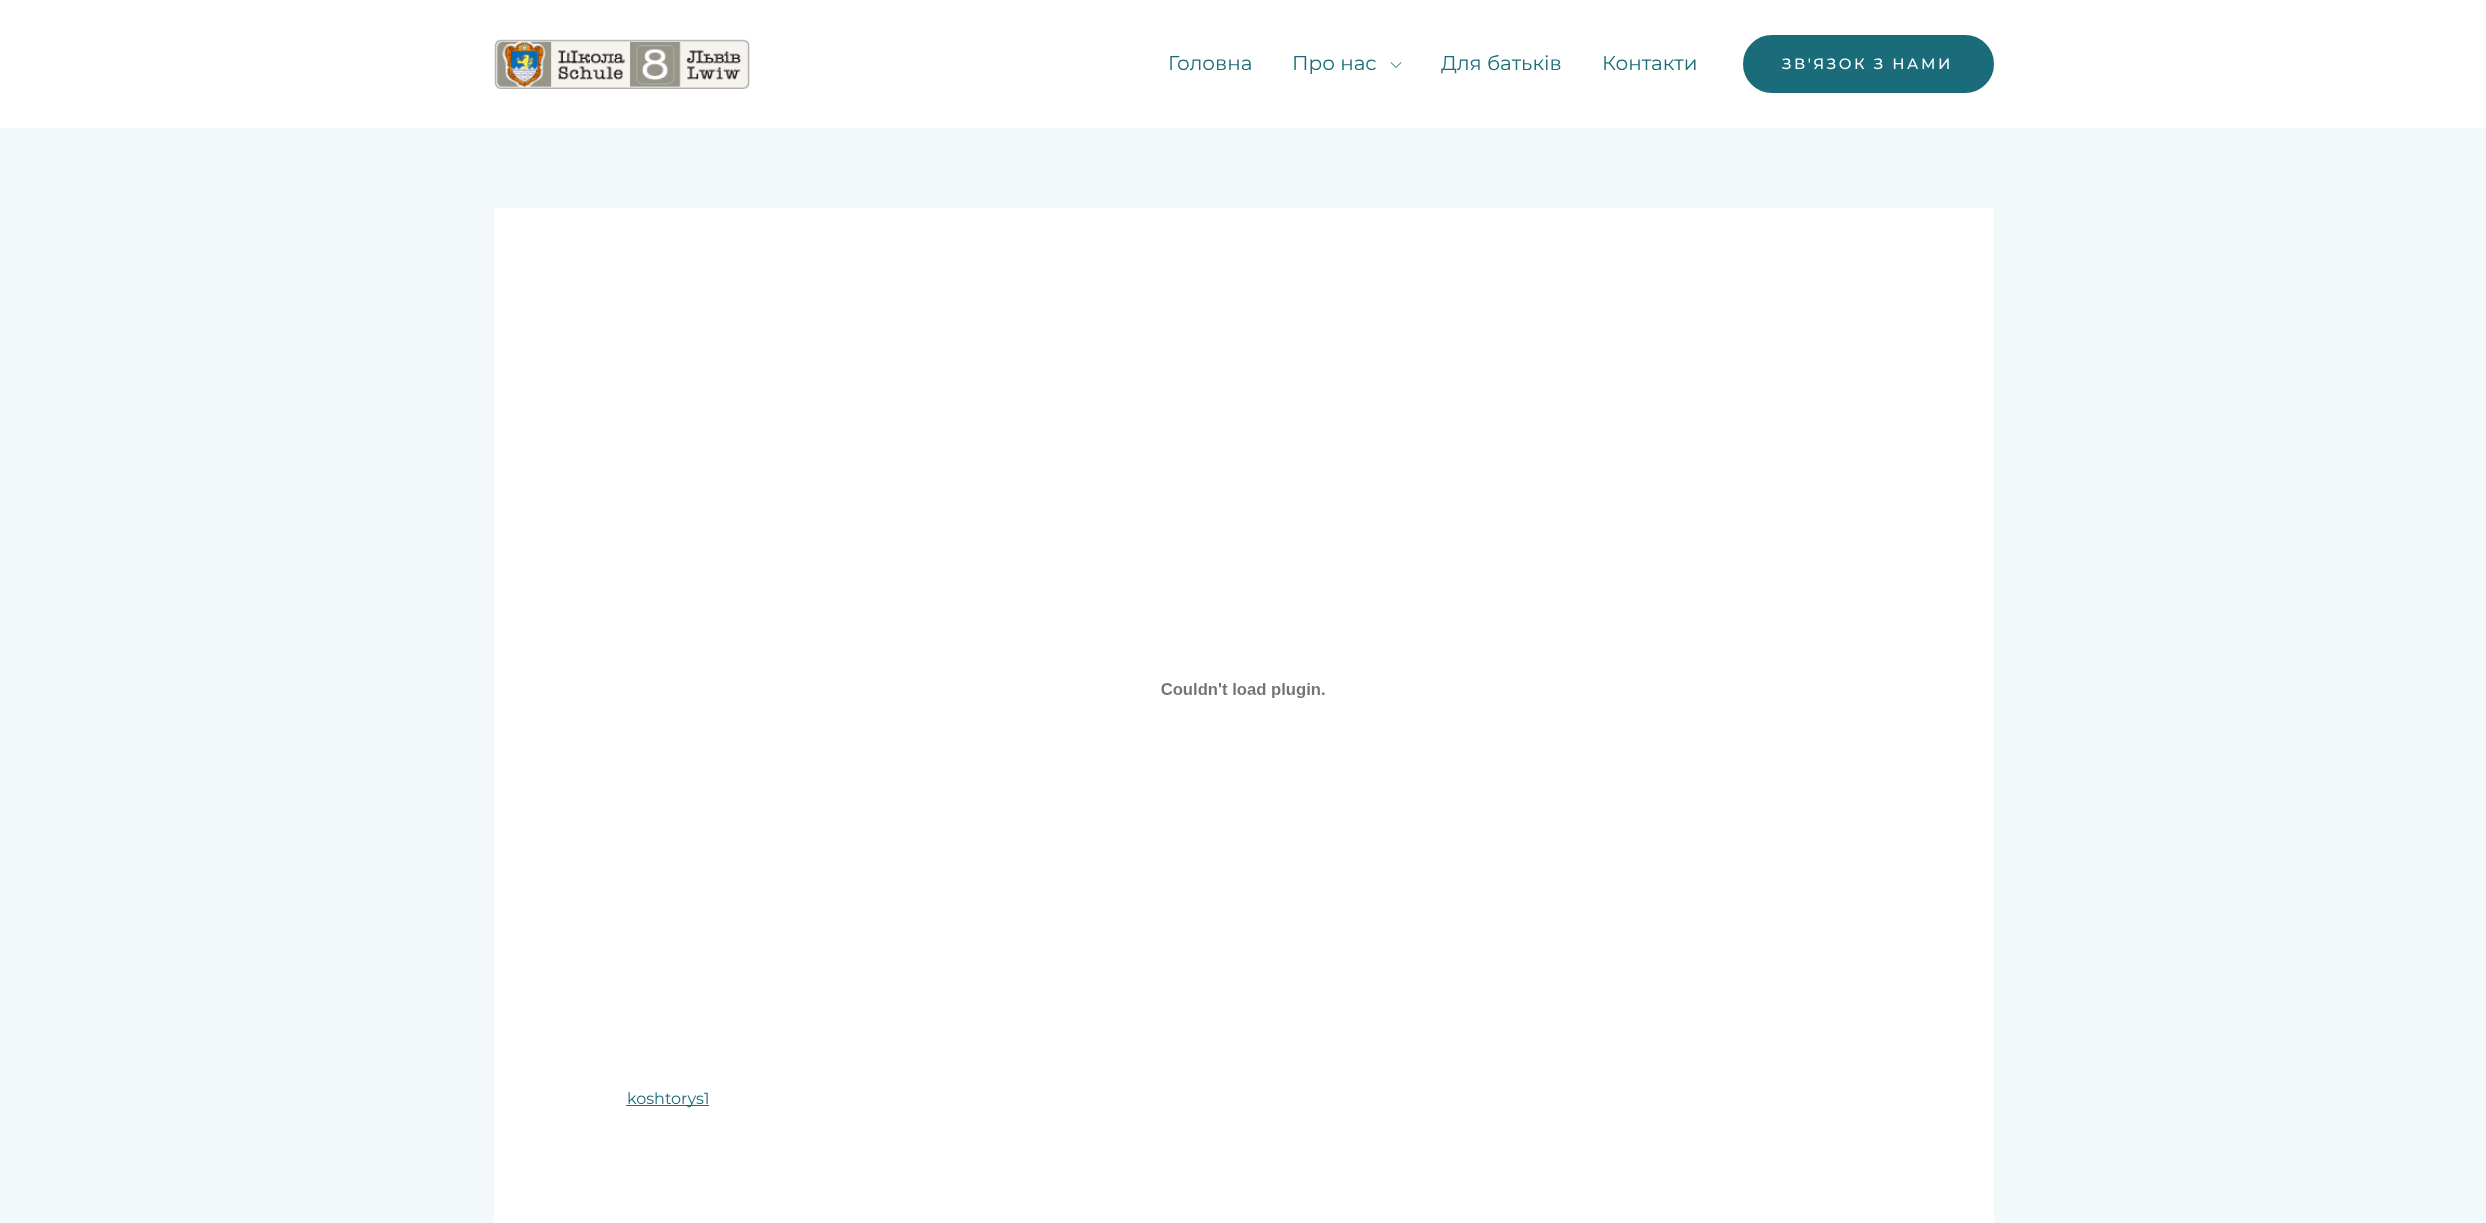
async function draw(canvas) {
  canvas.width = 2486
  canvas.height = 1223
  const ctx = canvas.getContext('2d')
  ctx.miterLimit = 4
  ctx.fontKerning = 'normal'
  async function loadImage(src) {
    const img = new Image()
    img.src = src
    await img.decode()
    return img
  }

  ctx.fillStyle = '#f3f9fb'
  ctx.fillRect(0, 0, 2486, 1223)
  ctx.fillStyle = '#fff'
  ctx.fillRect(0, 0, 2486, 128)
  ctx.drawImage(await loadImage('image0.png'), 494, 39, 256, 50)
  ctx.font = '20px Montserrat'
  ctx.fillStyle = '#1a6c7a'
  ctx.fillText('Головна', 1168, 70)
  ctx.fillText('Про нас', 1292, 70)
  ctx.drawImage(await loadImage('image1.png'), 1390, 62, 12, 6)
  ctx.fillText('Для батьків', 1441, 70)
  ctx.fillText('Контакти', 1602, 70)
  ctx.beginPath()
  ctx.roundRect(1744.5, 36.5, 248, 55, 27.5)
  ctx.fill()
  ctx.strokeStyle = '#1a6c7a'
  ctx.lineWidth = 3
  ctx.stroke()
  ctx.letterSpacing = '2.5px'
  ctx.font = '500 15px Montserrat'
  ctx.fillStyle = '#fff'
  ctx.fillText('ЗВ\'ЯЗОК З НАМИ', 1782, 69)
  ctx.fillRect(494, 208, 1500, 1015)
  ctx.drawImage(await loadImage('image2.png'), 1161, 683, 164, 15)
  ctx.fillStyle = '#1a6c7a'
  ctx.fillRect(626, 1105, 83, 1)
  ctx.letterSpacing = '0px'
  ctx.font = '16px Montserrat'
  ctx.fillText('koshtorys1', 627, 1104)
}

draw(document.querySelector('canvas'))
